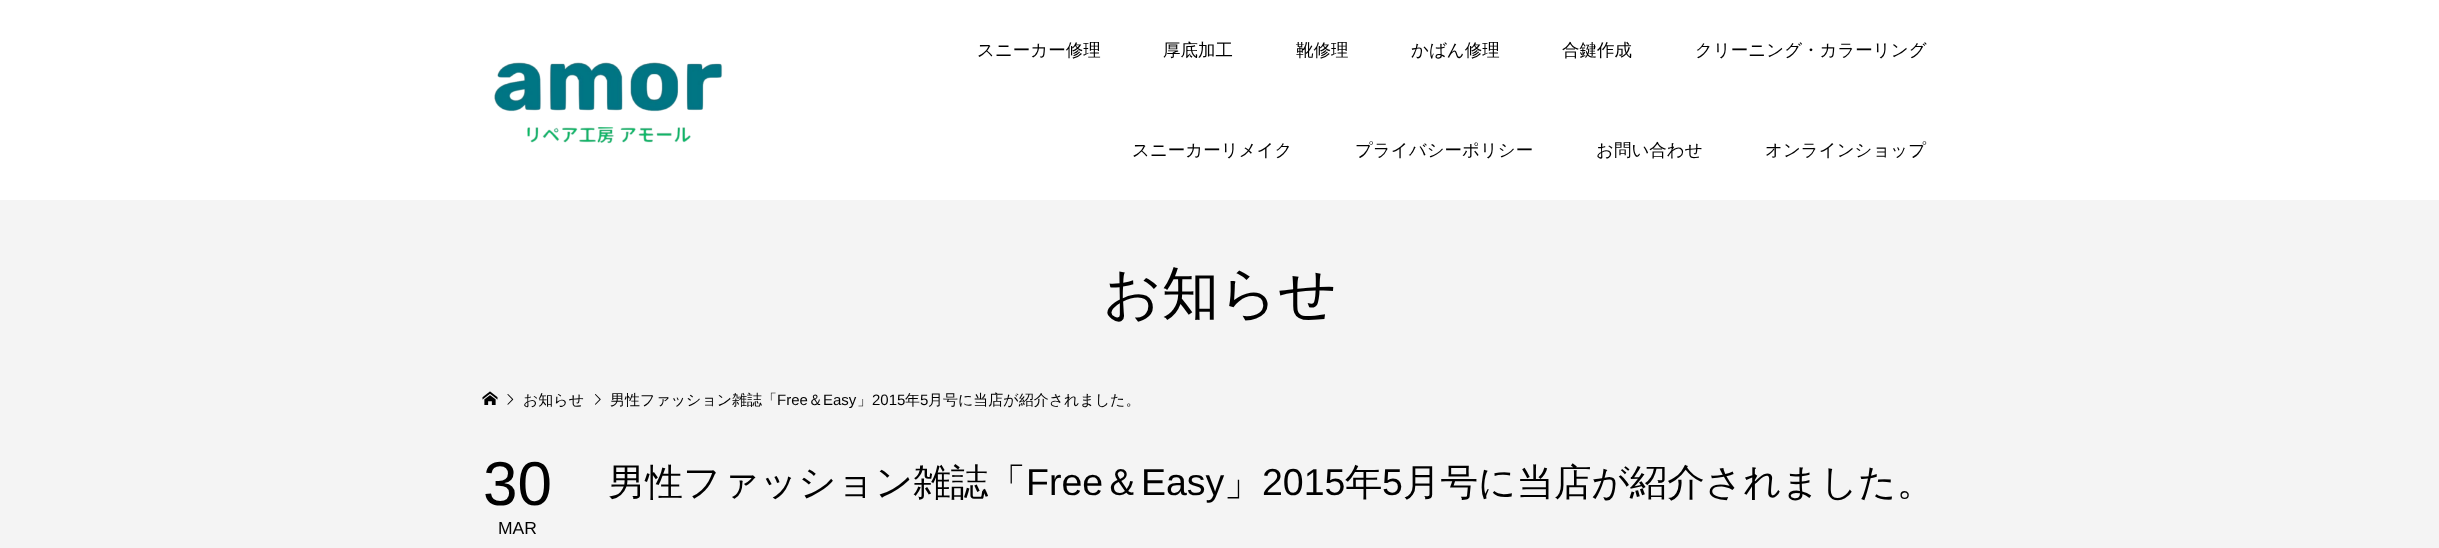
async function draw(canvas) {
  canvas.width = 2439
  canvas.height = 548
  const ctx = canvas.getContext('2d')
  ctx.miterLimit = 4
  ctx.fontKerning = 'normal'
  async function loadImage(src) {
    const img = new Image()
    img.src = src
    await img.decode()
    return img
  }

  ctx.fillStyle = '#fff'
  ctx.fillRect(0, 0, 2439, 548)
  ctx.drawImage(await loadImage('image0.png'), 494, 62, 229, 82)
  ctx.font = '500 17.5px WenQuanYi Zen Hei'
  ctx.fillStyle = '#000'
  ctx.fillText('スニーカー修理', 977, 56)
  ctx.fillText('厚底加工', 1163, 56)
  ctx.fillText('靴修理', 1296, 56)
  ctx.fillText('かばん修理', 1411, 56)
  ctx.fillText('合鍵作成', 1562, 56)
  ctx.fillText('クリーニング・カラーリング', 1695, 56)
  ctx.fillText('スニーカーリメイク', 1132, 156)
  ctx.fillText('プライバシーポリシー', 1355, 156)
  ctx.fillText('お問い合わせ', 1596, 156)
  ctx.fillText('オンラインショップ', 1765, 156)
  ctx.fillStyle = '#f4f4f4'
  ctx.fillRect(0, 200, 2439, 348)
  ctx.font = '500 57.5px WenQuanYi Zen Hei'
  ctx.fillStyle = '#000'
  ctx.fillText('お知らせ', 1103, 313)
  ctx.drawImage(await loadImage('image1.png'), 482, 391, 16, 14)
  ctx.drawImage(await loadImage('image2.png'), 507, 394, 7, 11)
  ctx.font = '500 15px WenQuanYi Zen Hei'
  ctx.fillText('お知らせ', 523, 405)
  ctx.drawImage(await loadImage('image3.png'), 595, 394, 6, 11)
  ctx.fillText('男性ファッション雑誌「', 610, 405)
  ctx.font = '15px Liberation Sans'
  ctx.fillText('Free', 777, 405)
  ctx.font = '500 15px WenQuanYi Zen Hei'
  ctx.fillText('＆', 808, 405)
  ctx.font = '15px Liberation Sans'
  ctx.fillText('Easy', 823, 405)
  ctx.font = '500 15px WenQuanYi Zen Hei'
  ctx.fillText('」', 857, 405)
  ctx.font = '15px Liberation Sans'
  ctx.fillText('2015', 872, 405)
  ctx.font = '500 15px WenQuanYi Zen Hei'
  ctx.fillText('年', 905, 405)
  ctx.font = '15px Liberation Sans'
  ctx.fillText('5', 920, 405)
  ctx.font = '500 15px WenQuanYi Zen Hei'
  ctx.fillText('月号に当店が紹介されました。', 928, 405)
  ctx.font = '62px Liberation Sans'
  ctx.fillText('30', 483, 505)
  ctx.font = '17.5px Liberation Sans'
  ctx.fillText('MAR', 498, 534)
  ctx.font = '500 37.5px WenQuanYi Zen Hei'
  ctx.fillText('男性ファッション雑誌「', 608, 495)
  ctx.font = '37.5px Liberation Sans'
  ctx.fillText('Free', 1026, 495)
  ctx.font = '500 37.5px WenQuanYi Zen Hei'
  ctx.fillText('＆', 1103, 495)
  ctx.font = '37.5px Liberation Sans'
  ctx.fillText('Easy', 1141, 495)
  ctx.font = '500 37.5px WenQuanYi Zen Hei'
  ctx.fillText('」', 1224, 495)
  ctx.font = '37.5px Liberation Sans'
  ctx.fillText('2015', 1262, 495)
  ctx.font = '500 37.5px WenQuanYi Zen Hei'
  ctx.fillText('年', 1345, 495)
  ctx.font = '37.5px Liberation Sans'
  ctx.fillText('5', 1382, 495)
  ctx.font = '500 37.5px WenQuanYi Zen Hei'
  ctx.fillText('月号に当店が紹介されました。', 1403, 495)
}

draw(document.querySelector('canvas'))
